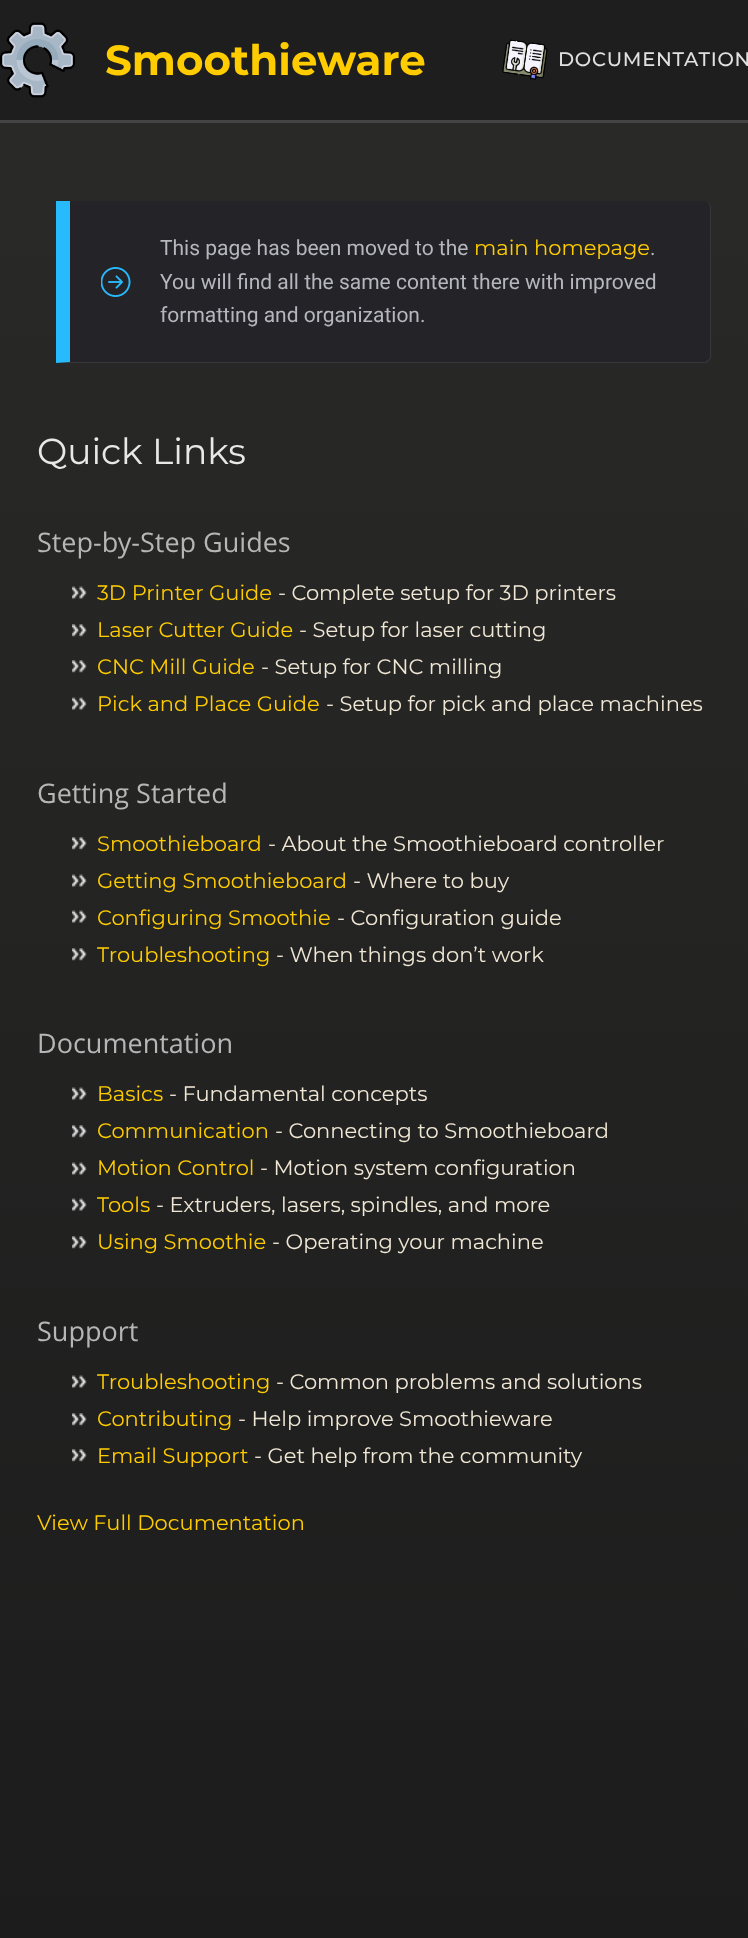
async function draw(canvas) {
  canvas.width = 748
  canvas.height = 1938
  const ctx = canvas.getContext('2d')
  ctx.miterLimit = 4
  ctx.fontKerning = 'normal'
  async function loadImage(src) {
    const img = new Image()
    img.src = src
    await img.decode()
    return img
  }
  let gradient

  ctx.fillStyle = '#fff'
  ctx.fillRect(0, 0, 748, 1938)
  gradient = ctx.createLinearGradient(374, 0, 374, 1938)
  gradient.addColorStop(0, '#2a2a29')
  gradient.addColorStop(1, '#1c1c1c')
  ctx.fillStyle = gradient
  ctx.fillRect(0, 123, 748, 1815)
  ctx.fillStyle = '#1e1e1e'
  ctx.fillRect(0, 0, 748, 120)
  ctx.fillStyle = '#444'
  ctx.fillRect(0, 120, 748, 3)
  ctx.drawImage(await loadImage('image0.png'), 0, 22, 75, 76)
  ctx.font = 'bold 42px Montserrat'
  ctx.fillStyle = '#fc0'
  ctx.fillText('Smoothieware', 105, 75)
  ctx.drawImage(await loadImage('image1.png'), 502, 39, 46, 41)
  ctx.letterSpacing = '0.75px'
  ctx.font = '500 19.5px Montserrat'
  ctx.fillStyle = '#e0e0e0'
  ctx.fillText('DOCUMENTATION', 558, 66)
  ctx.fillStyle = '#242428'
  ctx.beginPath()
  ctx.roundRect(56, 201, 655, 162, [0, 6, 6, 0])
  ctx.fill()
  ctx.fillStyle = '#36363b'
  ctx.beginPath()
  ctx.moveTo(711, 357)
  ctx.lineTo(711, 207)
  ctx.bezierCurveTo(711, 204, 708, 201, 705, 201)
  ctx.bezierCurveTo(707, 201, 710, 204, 710, 207)
  ctx.lineTo(710, 357)
  ctx.bezierCurveTo(710, 358, 709, 359, 708, 360)
  ctx.lineTo(709, 361)
  ctx.bezierCurveTo(710, 360, 711, 358, 711, 357)
  ctx.closePath()
  ctx.fill()
  ctx.beginPath()
  ctx.moveTo(56, 363)
  ctx.lineTo(705, 363)
  ctx.bezierCurveTo(706, 363, 708, 362, 709, 361)
  ctx.lineTo(708, 360)
  ctx.lineTo(705, 362)
  ctx.lineTo(70, 362)
  ctx.closePath()
  ctx.fill()
  ctx.fillStyle = '#27bafd'
  ctx.beginPath()
  ctx.moveTo(56, 201)
  ctx.lineTo(70, 201)
  ctx.lineTo(70, 362)
  ctx.lineTo(56, 363)
  ctx.closePath()
  ctx.fill()
  ctx.drawImage(await loadImage('image2.png'), 101, 267, 30, 30)
  ctx.letterSpacing = '0px'
  ctx.font = '21px Roboto'
  ctx.fillStyle = '#b6b6be'
  ctx.fillText('This page has been moved to the', 160, 255)
  ctx.font = '21px Montserrat'
  ctx.fillStyle = '#fc0'
  ctx.fillText('main homepage', 474, 255)
  ctx.font = '21px Roboto'
  ctx.fillStyle = '#b6b6be'
  ctx.fillText('.', 650, 255)
  ctx.fillText('You will find all the same content there with improved', 160, 289)
  ctx.fillText('formatting and organization.', 160, 322)
  ctx.font = '36px Montserrat'
  ctx.fillStyle = '#e8e8e8'
  ctx.fillText('Quick Links', 37, 464)
  ctx.font = '27px Open Sans'
  ctx.fillStyle = '#b6b6b6'
  ctx.fillText('Step-by-Step Guides', 37, 552)
  ctx.drawImage(await loadImage('image3.png'), 72, 586, 15, 13)
  ctx.font = '21px Montserrat'
  ctx.fillStyle = '#fc0'
  ctx.fillText('3D Printer Guide', 97, 600)
  ctx.fillStyle = '#f0e7d5'
  ctx.fillText('- Complete setup for 3D printers', 278, 600)
  ctx.drawImage(await loadImage('image4.png'), 72, 624, 15, 13)
  ctx.fillStyle = '#fc0'
  ctx.fillText('Laser Cutter Guide', 97, 637)
  ctx.fillStyle = '#f0e7d5'
  ctx.fillText('- Setup for laser cutting', 299, 637)
  ctx.drawImage(await loadImage('image5.png'), 72, 660, 15, 13)
  ctx.fillStyle = '#fc0'
  ctx.fillText('CNC Mill Guide', 97, 674)
  ctx.fillStyle = '#f0e7d5'
  ctx.fillText('- Setup for CNC milling', 261, 674)
  ctx.drawImage(await loadImage('image6.png'), 72, 697, 15, 13)
  ctx.fillStyle = '#fc0'
  ctx.fillText('Pick and Place Guide', 97, 711)
  ctx.fillStyle = '#f0e7d5'
  ctx.fillText('- Setup for pick and place machines', 326, 711)
  ctx.font = '27px Open Sans'
  ctx.fillStyle = '#b6b6b6'
  ctx.fillText('Getting Started', 37, 803)
  ctx.drawImage(await loadImage('image7.png'), 72, 837, 15, 13)
  ctx.font = '21px Montserrat'
  ctx.fillStyle = '#fc0'
  ctx.fillText('Smoothieboard', 97, 851)
  ctx.fillStyle = '#f0e7d5'
  ctx.fillText('- About the Smoothieboard controller', 268, 851)
  ctx.drawImage(await loadImage('image8.png'), 72, 874, 15, 13)
  ctx.fillStyle = '#fc0'
  ctx.fillText('Getting Smoothieboard', 97, 888)
  ctx.fillStyle = '#f0e7d5'
  ctx.fillText('- Where to buy', 353, 888)
  ctx.drawImage(await loadImage('image9.png'), 72, 910, 15, 13)
  ctx.fillStyle = '#fc0'
  ctx.fillText('Configuring Smoothie', 97, 925)
  ctx.fillStyle = '#f0e7d5'
  ctx.fillText('- Configuration guide', 337, 925)
  ctx.drawImage(await loadImage('image10.png'), 72, 948, 15, 13)
  ctx.fillStyle = '#fc0'
  ctx.fillText('Troubleshooting', 97, 962)
  ctx.fillStyle = '#f0e7d5'
  ctx.fillText('- When things don’t work', 276, 962)
  ctx.font = '27px Open Sans'
  ctx.fillStyle = '#b6b6b6'
  ctx.fillText('Documentation', 37, 1053)
  ctx.drawImage(await loadImage('image11.png'), 72, 1087, 15, 13)
  ctx.font = '21px Montserrat'
  ctx.fillStyle = '#fc0'
  ctx.fillText('Basics', 97, 1101)
  ctx.fillStyle = '#f0e7d5'
  ctx.fillText('- Fundamental concepts', 169, 1101)
  ctx.drawImage(await loadImage('image12.png'), 72, 1125, 15, 13)
  ctx.fillStyle = '#fc0'
  ctx.fillText('Communication', 97, 1138)
  ctx.fillStyle = '#f0e7d5'
  ctx.fillText('- Connecting to Smoothieboard', 275, 1138)
  ctx.drawImage(await loadImage('image13.png'), 72, 1162, 15, 13)
  ctx.fillStyle = '#fc0'
  ctx.fillText('Motion Control', 97, 1175)
  ctx.fillStyle = '#f0e7d5'
  ctx.fillText('- Motion system configuration', 260, 1175)
  ctx.drawImage(await loadImage('image14.png'), 72, 1198, 15, 13)
  ctx.fillStyle = '#fc0'
  ctx.fillText('Tools', 97, 1212)
  ctx.fillStyle = '#f0e7d5'
  ctx.fillText('- Extruders, lasers, spindles, and more', 156, 1212)
  ctx.drawImage(await loadImage('image15.png'), 72, 1236, 15, 13)
  ctx.fillStyle = '#fc0'
  ctx.fillText('Using Smoothie', 97, 1249)
  ctx.fillStyle = '#f0e7d5'
  ctx.fillText('- Operating your machine', 272, 1249)
  ctx.font = '27px Open Sans'
  ctx.fillStyle = '#b6b6b6'
  ctx.fillText('Support', 37, 1341)
  ctx.drawImage(await loadImage('image16.png'), 72, 1375, 15, 13)
  ctx.font = '21px Montserrat'
  ctx.fillStyle = '#fc0'
  ctx.fillText('Troubleshooting', 97, 1389)
  ctx.fillStyle = '#f0e7d5'
  ctx.fillText('- Common problems and solutions', 276, 1389)
  ctx.drawImage(await loadImage('image17.png'), 72, 1413, 15, 13)
  ctx.fillStyle = '#fc0'
  ctx.fillText('Contributing', 97, 1426)
  ctx.fillStyle = '#f0e7d5'
  ctx.fillText('- Help improve Smoothieware', 238, 1426)
  ctx.drawImage(await loadImage('image18.png'), 72, 1449, 15, 13)
  ctx.fillStyle = '#fc0'
  ctx.fillText('Email Support', 97, 1463)
  ctx.fillStyle = '#f0e7d5'
  ctx.fillText('- Get help from the community', 254, 1463)
  ctx.fillStyle = '#fc0'
  ctx.fillText('View Full Documentation', 37, 1530)
}

draw(document.querySelector('canvas'))
